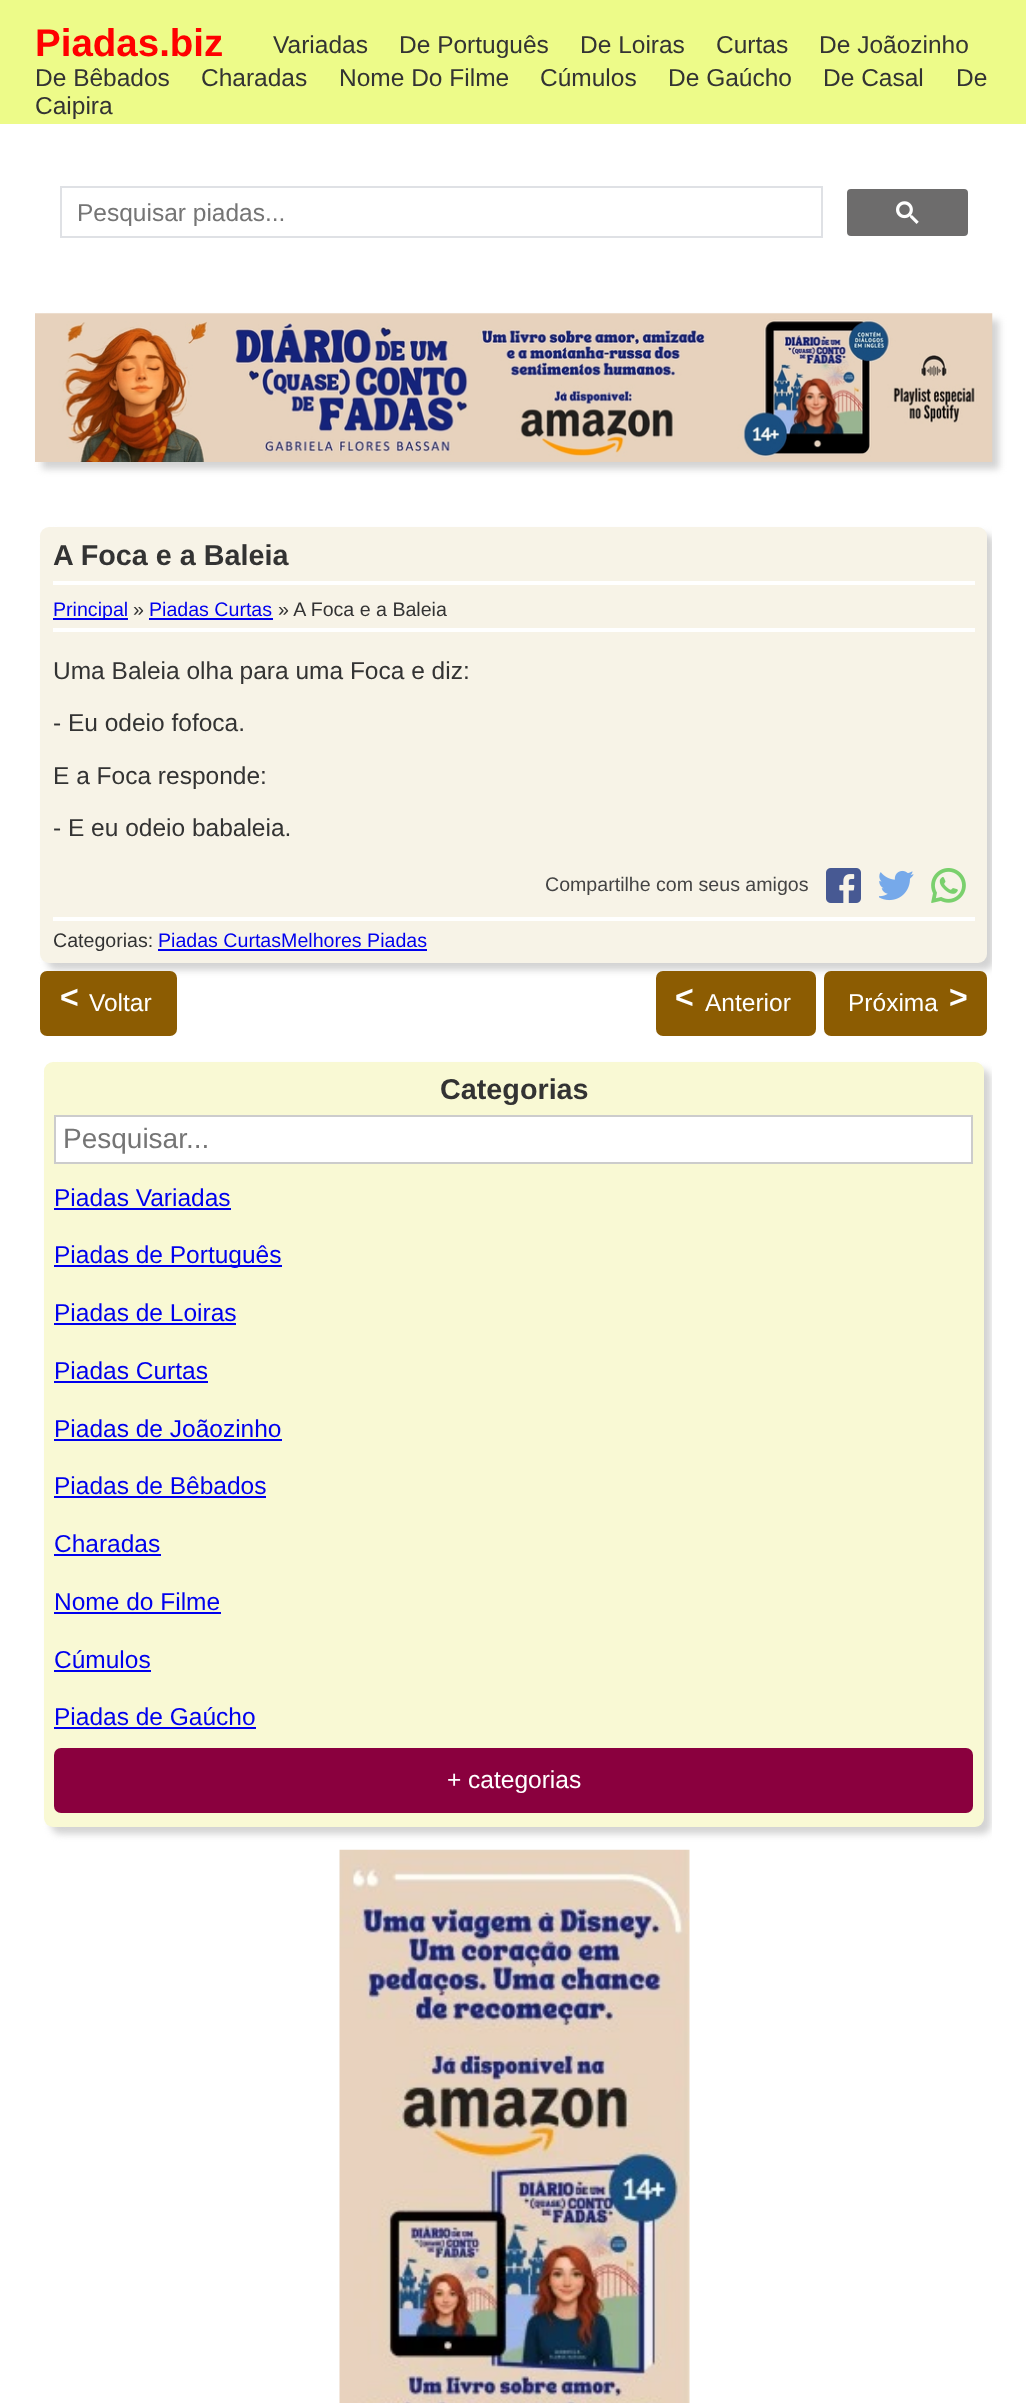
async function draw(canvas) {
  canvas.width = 1026
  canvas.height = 2403
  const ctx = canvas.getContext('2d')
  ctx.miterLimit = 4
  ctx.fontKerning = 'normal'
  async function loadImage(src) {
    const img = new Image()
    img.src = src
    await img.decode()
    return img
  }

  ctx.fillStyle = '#fff'
  ctx.fillRect(0, 0, 1026, 2403)
  ctx.fillStyle = '#edfb89'
  ctx.fillRect(0, 0, 1026, 124)
  ctx.font = 'bold 38.5px Liberation Sans'
  ctx.fillStyle = '#f00'
  ctx.fillText('Piadas.biz', 35, 56)
  ctx.font = '24.5px Liberation Sans'
  ctx.fillStyle = '#333'
  ctx.fillText('Variadas', 273, 53)
  ctx.fillText('De Português', 399, 53)
  ctx.fillText('De Loiras', 580, 53)
  ctx.fillText('Curtas', 716, 53)
  ctx.fillText('De Joãozinho', 819, 53)
  ctx.fillText('De Bêbados', 35, 86)
  ctx.fillText('Charadas', 201, 86)
  ctx.fillText('Nome Do Filme', 339, 86)
  ctx.fillText('Cúmulos', 540, 86)
  ctx.fillText('De Gaúcho', 668, 86)
  ctx.fillText('De Casal', 823, 86)
  ctx.fillText('De', 956, 86)
  ctx.fillText('Caipira', 35, 114)
  ctx.strokeStyle = '#dfe1e5'
  ctx.lineWidth = 2
  ctx.strokeRect(61, 187, 761, 50)
  ctx.save()
  ctx.beginPath()
  ctx.rect(77, 198, 721, 28)
  ctx.clip()
  ctx.fillStyle = '#757575'
  ctx.fillText('Pesquisar piadas...', 77, 221)
  ctx.restore()
  ctx.fillStyle = '#6d6c6c'
  ctx.beginPath()
  ctx.roundRect(848, 190, 119, 45, 3)
  ctx.fill()
  ctx.strokeStyle = '#6d6c6c'
  ctx.stroke()
  ctx.drawImage(await loadImage('image0.png'), 896, 201, 23, 23)
  ctx.fillStyle = '#d3d3d3'
  ctx.filter = 'blur(3.5px)'
  ctx.beginPath()
  ctx.rect(42, 320, 957, 149)
  ctx.fill()
  ctx.filter = 'none'
  ctx.drawImage(await loadImage('image1.png'), 35, 313, 958, 149)
  ctx.save()
  ctx.beginPath()
  ctx.rect(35, 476, 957, 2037)
  ctx.clip()
  ctx.filter = 'blur(3.5px)'
  ctx.beginPath()
  ctx.roundRect(47, 534, 947, 436, 9)
  ctx.fill()
  ctx.filter = 'none'
  ctx.restore()
  ctx.fillStyle = '#f7f3e7'
  ctx.beginPath()
  ctx.roundRect(40, 527, 947, 436, 9)
  ctx.fill()
  ctx.fillStyle = '#fff'
  ctx.fillRect(53, 581, 922, 4)
  ctx.font = 'bold 28.75px Liberation Sans'
  ctx.fillStyle = '#333'
  ctx.fillText('A Foca e a Baleia', 53, 565)
  ctx.fillStyle = '#fff'
  ctx.fillRect(53, 628, 922, 4)
  ctx.fillStyle = '#00e'
  ctx.fillRect(53, 618, 75, 2)
  ctx.font = '19.6px Liberation Sans'
  ctx.fillText('Principal', 53, 616)
  ctx.fillStyle = '#333'
  ctx.fillText('»', 133, 616)
  ctx.fillStyle = '#00e'
  ctx.fillText('Piadas Curtas', 149, 616)
  ctx.fillRect(149, 618, 124, 2)
  ctx.fillStyle = '#333'
  ctx.fillText('» A Foca e a Baleia', 278, 616)
  ctx.font = '24.5px Liberation Sans'
  ctx.fillText('Uma Baleia olha para uma Foca e diz:', 53, 679)
  ctx.fillText('- Eu odeio fofoca.', 53, 731)
  ctx.fillText('E a Foca responde:', 53, 784)
  ctx.fillText('- E eu odeio babaleia.', 53, 836)
  ctx.font = '19.6px Liberation Sans'
  ctx.fillStyle = '#444'
  ctx.fillText('Compartilhe com seus amigos', 545, 891)
  ctx.drawImage(await loadImage('image2.png'), 826, 868, 35, 35)
  ctx.drawImage(await loadImage('image3.png'), 879, 870, 35, 31)
  ctx.drawImage(await loadImage('image4.png'), 931, 868, 35, 35)
  ctx.fillStyle = '#fff'
  ctx.fillRect(53, 917, 922, 4)
  ctx.fillStyle = '#333'
  ctx.fillText('Categorias:', 53, 947)
  ctx.fillStyle = '#00e'
  ctx.fillText('Piadas CurtasMelhores Piadas', 158, 947)
  ctx.fillRect(158, 949, 269, 2)
  ctx.fillStyle = '#8c5c02'
  ctx.beginPath()
  ctx.roundRect(40, 971, 137, 65, 7)
  ctx.fill()
  ctx.font = 'bold 32px Liberation Sans'
  ctx.fillStyle = '#fff'
  ctx.fillText('<', 60, 1008)
  ctx.font = '24.5px Liberation Sans'
  ctx.fillText('Voltar', 89, 1011)
  ctx.fillStyle = '#8c5c02'
  ctx.beginPath()
  ctx.roundRect(656, 971, 160, 65, 7)
  ctx.fill()
  ctx.font = 'bold 32px Liberation Sans'
  ctx.fillStyle = '#fff'
  ctx.fillText('<', 675, 1008)
  ctx.font = '24.5px Liberation Sans'
  ctx.fillText('Anterior', 705, 1011)
  ctx.fillStyle = '#8c5c02'
  ctx.beginPath()
  ctx.roundRect(824, 971, 163, 65, 7)
  ctx.fill()
  ctx.fillStyle = '#fff'
  ctx.fillText('Próxima', 848, 1011)
  ctx.font = 'bold 32px Liberation Sans'
  ctx.fillText('>', 949, 1008)
  ctx.save()
  ctx.beginPath()
  ctx.rect(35, 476, 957, 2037)
  ctx.clip()
  ctx.fillStyle = '#d3d3d3'
  ctx.filter = 'blur(3.5px)'
  ctx.beginPath()
  ctx.roundRect(51, 1069, 940, 765, 9)
  ctx.fill()
  ctx.filter = 'none'
  ctx.restore()
  ctx.fillStyle = '#f9f9d4'
  ctx.beginPath()
  ctx.roundRect(44, 1062, 940, 765, 9)
  ctx.fill()
  ctx.font = 'bold 28.75px Liberation Sans'
  ctx.fillStyle = '#333'
  ctx.fillText('Categorias', 440, 1099)
  ctx.fillStyle = '#fff'
  ctx.beginPath()
  ctx.rect(55, 1116, 917, 47)
  ctx.fill()
  ctx.strokeStyle = '#ccc'
  ctx.stroke()
  ctx.font = '28px Liberation Sans'
  ctx.fillStyle = '#757575'
  ctx.fillText('Pesquisar...', 63, 1148)
  ctx.font = '24.5px Liberation Sans'
  ctx.fillStyle = '#00e'
  ctx.fillText('Piadas Variadas', 54, 1206)
  ctx.fillRect(54, 1208, 177, 2)
  ctx.fillRect(54, 1265, 228, 2)
  ctx.fillText('Piadas de Português', 54, 1263)
  ctx.fillText('Piadas de Loiras', 54, 1321)
  ctx.fillRect(54, 1323, 182, 2)
  ctx.fillText('Piadas Curtas', 54, 1379)
  ctx.fillRect(54, 1381, 154, 2)
  ctx.fillText('Piadas de Joãozinho', 54, 1437)
  ctx.fillRect(54, 1439, 228, 2)
  ctx.fillText('Piadas de Bêbados', 54, 1494)
  ctx.fillRect(54, 1496, 212, 2)
  ctx.fillText('Charadas', 54, 1552)
  ctx.fillRect(54, 1554, 107, 2)
  ctx.fillText('Nome do Filme', 54, 1610)
  ctx.fillRect(54, 1612, 167, 2)
  ctx.fillText('Cúmulos', 54, 1668)
  ctx.fillRect(54, 1670, 97, 2)
  ctx.fillText('Piadas de Gaúcho', 54, 1725)
  ctx.fillRect(54, 1727, 202, 2)
  ctx.fillStyle = '#8a003e'
  ctx.beginPath()
  ctx.roundRect(54, 1748, 919, 65, 7)
  ctx.fill()
  ctx.fillStyle = '#fff'
  ctx.fillText('+ categorias', 447, 1788)
  ctx.drawImage(await loadImage('image5.png'), 339, 1849, 351, 554)
}

draw(document.querySelector('canvas'))
